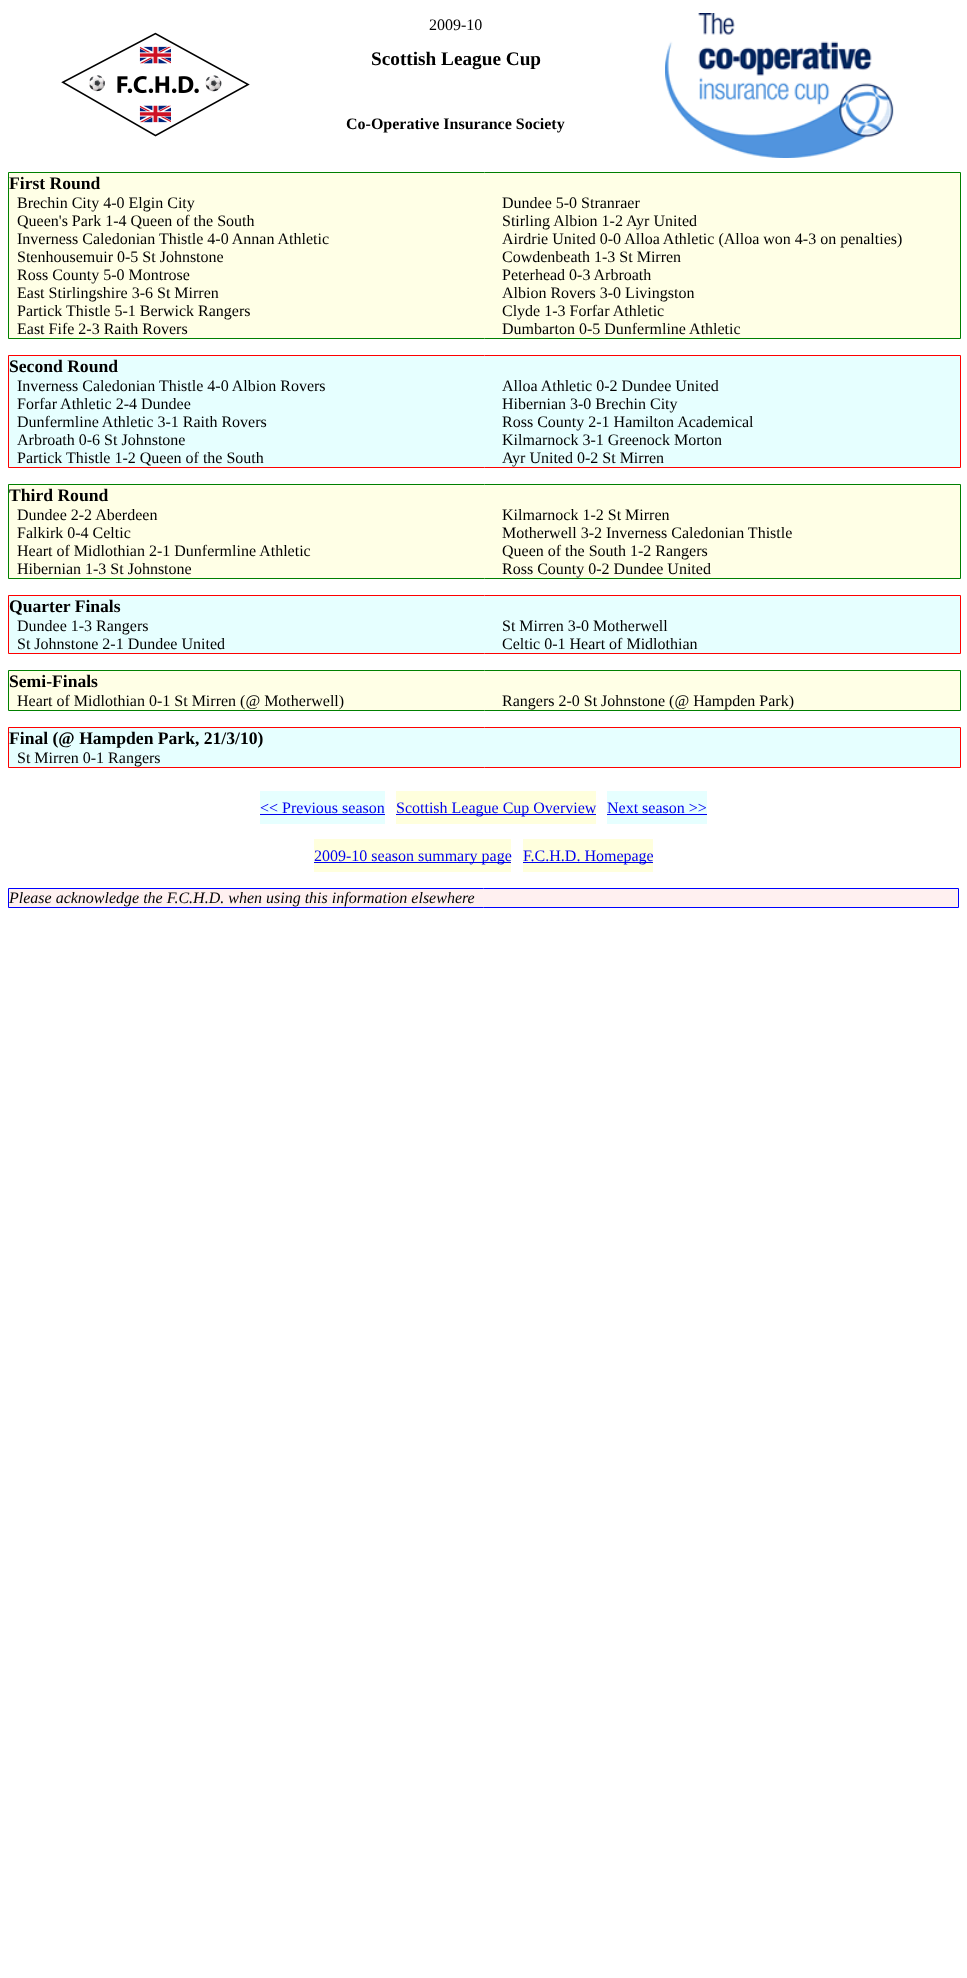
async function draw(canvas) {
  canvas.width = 967
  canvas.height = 1978
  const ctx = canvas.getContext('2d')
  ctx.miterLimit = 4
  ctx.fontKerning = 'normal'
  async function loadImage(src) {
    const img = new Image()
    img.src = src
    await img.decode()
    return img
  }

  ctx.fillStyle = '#fff'
  ctx.fillRect(0, 0, 967, 1978)
  ctx.font = '16px Liberation Serif'
  ctx.fillStyle = '#000'
  ctx.fillText('2009-10', 429, 30)
  ctx.drawImage(await loadImage('image0.png'), 665, 13, 229, 145)
  ctx.drawImage(await loadImage('image1.png'), 61, 32, 189, 105)
  ctx.font = 'bold 19.25px Liberation Serif'
  ctx.fillText('Scottish League Cup', 371, 65)
  ctx.font = 'bold 16px Liberation Serif'
  ctx.fillText('Co-Operative Insurance Society', 346, 129)
  ctx.fillStyle = '#ffffe6'
  ctx.beginPath()
  ctx.rect(8.5, 172.5, 952, 166)
  ctx.fill()
  ctx.strokeStyle = '#008000'
  ctx.stroke()
  ctx.font = 'bold 17.6px Liberation Serif'
  ctx.fillStyle = '#000'
  ctx.fillText('First Round', 9, 189)
  ctx.font = '16px Liberation Serif'
  ctx.fillText('Brechin City 4-0 Elgin City', 17, 208)
  ctx.fillText('Queen\'s Park 1-4 Queen of the South', 17, 226)
  ctx.fillText('Inverness Caledonian Thistle 4-0 Annan Athletic', 17, 244)
  ctx.fillText('Stenhousemuir 0-5 St Johnstone', 17, 262)
  ctx.fillText('Ross County 5-0 Montrose', 17, 280)
  ctx.fillText('East Stirlingshire 3-6 St Mirren', 17, 298)
  ctx.fillText('Partick Thistle 5-1 Berwick Rangers', 17, 316)
  ctx.fillText('East Fife 2-3 Raith Rovers', 17, 334)
  ctx.fillText('Dundee 5-0 Stranraer', 502, 208)
  ctx.fillText('Stirling Albion 1-2 Ayr United', 502, 226)
  ctx.fillText('Airdrie United 0-0 Alloa Athletic (Alloa won 4-3 on penalties)', 502, 244)
  ctx.fillText('Cowdenbeath 1-3 St Mirren', 502, 262)
  ctx.fillText('Peterhead 0-3 Arbroath', 502, 280)
  ctx.fillText('Albion Rovers 3-0 Livingston', 502, 298)
  ctx.fillText('Clyde 1-3 Forfar Athletic', 502, 316)
  ctx.fillText('Dumbarton 0-5 Dunfermline Athletic', 502, 334)
  ctx.fillStyle = '#e6ffff'
  ctx.beginPath()
  ctx.rect(8.5, 355.5, 952, 112)
  ctx.fill()
  ctx.strokeStyle = '#f00'
  ctx.stroke()
  ctx.font = 'bold 17.6px Liberation Serif'
  ctx.fillStyle = '#000'
  ctx.fillText('Second Round', 9, 372)
  ctx.font = '16px Liberation Serif'
  ctx.fillText('Inverness Caledonian Thistle 4-0 Albion Rovers', 17, 391)
  ctx.fillText('Forfar Athletic 2-4 Dundee', 17, 409)
  ctx.fillText('Dunfermline Athletic 3-1 Raith Rovers', 17, 427)
  ctx.fillText('Arbroath 0-6 St Johnstone', 17, 445)
  ctx.fillText('Partick Thistle 1-2 Queen of the South', 17, 463)
  ctx.fillText('Alloa Athletic 0-2 Dundee United', 502, 391)
  ctx.fillText('Hibernian 3-0 Brechin City', 502, 409)
  ctx.fillText('Ross County 2-1 Hamilton Academical', 502, 427)
  ctx.fillText('Kilmarnock 3-1 Greenock Morton', 502, 445)
  ctx.fillText('Ayr United 0-2 St Mirren', 502, 463)
  ctx.fillStyle = '#ffffe6'
  ctx.beginPath()
  ctx.rect(8.5, 484.5, 952, 94)
  ctx.fill()
  ctx.strokeStyle = '#008000'
  ctx.stroke()
  ctx.font = 'bold 17.6px Liberation Serif'
  ctx.fillStyle = '#000'
  ctx.fillText('Third Round', 9, 501)
  ctx.font = '16px Liberation Serif'
  ctx.fillText('Dundee 2-2 Aberdeen', 17, 520)
  ctx.fillText('Falkirk 0-4 Celtic', 17, 538)
  ctx.fillText('Heart of Midlothian 2-1 Dunfermline Athletic', 17, 556)
  ctx.fillText('Hibernian 1-3 St Johnstone', 17, 574)
  ctx.fillText('Kilmarnock 1-2 St Mirren', 502, 520)
  ctx.fillText('Motherwell 3-2 Inverness Caledonian Thistle', 502, 538)
  ctx.fillText('Queen of the South 1-2 Rangers', 502, 556)
  ctx.fillText('Ross County 0-2 Dundee United', 502, 574)
  ctx.fillStyle = '#e6ffff'
  ctx.beginPath()
  ctx.rect(8.5, 595.5, 952, 58)
  ctx.fill()
  ctx.strokeStyle = '#f00'
  ctx.stroke()
  ctx.font = 'bold 17.6px Liberation Serif'
  ctx.fillStyle = '#000'
  ctx.fillText('Quarter Finals', 9, 612)
  ctx.font = '16px Liberation Serif'
  ctx.fillText('Dundee 1-3 Rangers', 17, 631)
  ctx.fillText('St Johnstone 2-1 Dundee United', 17, 649)
  ctx.fillText('St Mirren 3-0 Motherwell', 502, 631)
  ctx.fillText('Celtic 0-1 Heart of Midlothian', 502, 649)
  ctx.fillStyle = '#ffffe6'
  ctx.beginPath()
  ctx.rect(8.5, 670.5, 952, 40)
  ctx.fill()
  ctx.strokeStyle = '#008000'
  ctx.stroke()
  ctx.font = 'bold 17.6px Liberation Serif'
  ctx.fillStyle = '#000'
  ctx.fillText('Semi-Finals', 9, 687)
  ctx.font = '16px Liberation Serif'
  ctx.fillText('Heart of Midlothian 0-1 St Mirren (@ Motherwell)', 17, 706)
  ctx.fillText('Rangers 2-0 St Johnstone (@ Hampden Park)', 502, 706)
  ctx.fillStyle = '#e6ffff'
  ctx.beginPath()
  ctx.rect(8.5, 727.5, 952, 40)
  ctx.fill()
  ctx.strokeStyle = '#f00'
  ctx.stroke()
  ctx.font = 'bold 17.6px Liberation Serif'
  ctx.fillStyle = '#000'
  ctx.fillText('Final (@ Hampden Park, 21/3/10)', 9, 744)
  ctx.font = '16px Liberation Serif'
  ctx.fillText('St Mirren 0-1 Rangers', 17, 763)
  ctx.fillStyle = '#e6ffff'
  ctx.fillRect(260, 791, 125, 33)
  ctx.fillStyle = '#00e'
  ctx.fillText('<< Previous season', 260, 813)
  ctx.fillRect(260, 814, 125, 1)
  ctx.fillStyle = '#ffd'
  ctx.fillRect(396, 791, 200, 33)
  ctx.fillStyle = '#00e'
  ctx.fillRect(396, 814, 200, 1)
  ctx.fillText('Scottish League Cup Overview', 396, 813)
  ctx.fillStyle = '#e6ffff'
  ctx.fillRect(607, 791, 100, 33)
  ctx.fillStyle = '#00e'
  ctx.fillText('Next season >>', 607, 813)
  ctx.fillRect(607, 814, 100, 1)
  ctx.fillStyle = '#ffd'
  ctx.fillRect(314, 839, 197, 33)
  ctx.fillStyle = '#00e'
  ctx.fillRect(314, 862, 197, 1)
  ctx.fillText('2009-10 season summary page', 314, 861)
  ctx.fillStyle = '#ffd'
  ctx.fillRect(523, 839, 130, 33)
  ctx.fillStyle = '#00e'
  ctx.fillRect(523, 862, 130, 1)
  ctx.fillText('F.C.H.D. Homepage', 523, 861)
  ctx.fillStyle = '#fff0f0'
  ctx.beginPath()
  ctx.rect(8.5, 888.5, 950, 19)
  ctx.fill()
  ctx.strokeStyle = '#00f'
  ctx.stroke()
  ctx.font = 'italic 16px Liberation Serif'
  ctx.fillStyle = '#000'
  ctx.fillText('Please acknowledge the F.C.H.D. when using this information elsewhere', 9, 903)
}

draw(document.querySelector('canvas'))
